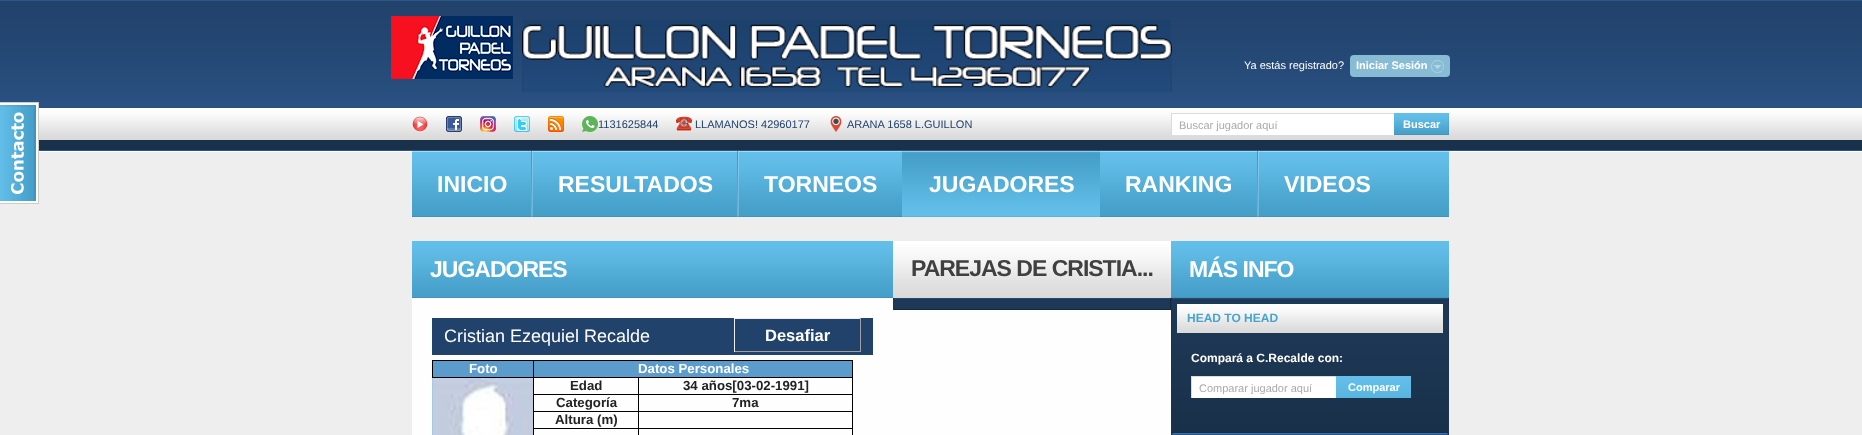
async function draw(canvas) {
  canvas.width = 1862
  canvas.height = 435
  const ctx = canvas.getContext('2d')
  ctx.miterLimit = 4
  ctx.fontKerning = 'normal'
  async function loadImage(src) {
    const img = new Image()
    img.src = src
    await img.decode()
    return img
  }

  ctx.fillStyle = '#eee'
  ctx.fillRect(0, 0, 1862, 435)
  ctx.drawImage(await loadImage('image1.png'), 0, 0, 1862, 152)
  ctx.drawImage(await loadImage('image0.png'), 0, 102, 39, 102)
  ctx.drawImage(await loadImage('image2.png'), 391, 16, 122, 63)
  ctx.drawImage(await loadImage('image3.png'), 522, 20, 650, 72)
  ctx.font = '11px Liberation Sans'
  ctx.fillStyle = '#fff'
  ctx.fillText('Ya estás registrado?', 1244, 69)
  ctx.fillStyle = '#88bbd4'
  ctx.beginPath()
  ctx.roundRect(1350, 55, 100, 22, 4)
  ctx.fill()
  ctx.font = 'bold 11px Liberation Sans'
  ctx.fillStyle = '#fff'
  ctx.fillText('Iniciar Sesión', 1356, 69)
  ctx.drawImage(await loadImage('image4.png'), 1431, 60, 13, 13)
  ctx.drawImage(await loadImage('image5.png'), 412, 116, 16, 16)
  ctx.drawImage(await loadImage('image6.png'), 446, 116, 16, 16)
  ctx.drawImage(await loadImage('image7.png'), 480, 116, 16, 16)
  ctx.drawImage(await loadImage('image8.png'), 514, 116, 16, 16)
  ctx.drawImage(await loadImage('image9.png'), 548, 116, 16, 16)
  ctx.drawImage(await loadImage('image10.png'), 582, 116, 16, 16)
  ctx.font = '11px Liberation Sans'
  ctx.fillStyle = '#21426b'
  ctx.fillText('1131625844', 598, 128)
  ctx.drawImage(await loadImage('image11.png'), 676, 116, 16, 15)
  ctx.fillText('LLAMANOS! 42960177', 695, 128)
  ctx.drawImage(await loadImage('image12.png'), 830, 116, 12, 16)
  ctx.fillText('ARANA 1658 L.GUILLON', 847, 128)
  ctx.fillStyle = '#fff'
  ctx.fillRect(1172, 114, 222, 21)
  ctx.fillStyle = '#dbdbdb'
  ctx.fillRect(1171, 113, 223, 1)
  ctx.fillRect(1171, 113, 1, 22)
  ctx.save()
  ctx.beginPath()
  ctx.rect(1179, 119, 208, 12)
  ctx.clip()
  ctx.fillStyle = '#aca9a9'
  ctx.fillText('Buscar jugador aquí', 1179, 129)
  ctx.restore()
  ctx.drawImage(await loadImage('image13.png'), 1394, 113, 55, 22)
  ctx.font = 'bold 11px Liberation Sans'
  ctx.fillStyle = '#fff'
  ctx.fillText('Buscar', 1403, 128)
  ctx.drawImage(await loadImage('image14.png'), 412, 151, 1037, 66)
  ctx.font = 'bold 23px Liberation Sans'
  ctx.fillText('INICIO', 437, 192)
  ctx.drawImage(await loadImage('image15.png'), 531, 151, 2, 66)
  ctx.fillText('RESULTADOS', 558, 192)
  ctx.drawImage(await loadImage('image15.png'), 737, 151, 2, 66)
  ctx.fillText('TORNEOS', 764, 192)
  ctx.drawImage(await loadImage('image16.png'), 902, 151, 198, 66)
  ctx.fillText('JUGADORES', 929, 192)
  ctx.fillText('RANKING', 1125, 192)
  ctx.drawImage(await loadImage('image15.png'), 1257, 151, 2, 66)
  ctx.fillText('VIDEOS', 1284, 192)
  ctx.fillStyle = '#fefefe'
  ctx.fillRect(412, 298, 759, 137)
  ctx.drawImage(await loadImage('image17.png'), 412, 241, 481, 57)
  ctx.letterSpacing = '-1px'
  ctx.fillStyle = '#fff'
  ctx.fillText('JUGADORES', 430, 277)
  ctx.fillStyle = '#21426b'
  ctx.fillRect(432, 318, 441, 37)
  ctx.letterSpacing = '0px'
  ctx.font = '18px Liberation Sans'
  ctx.fillStyle = '#fff'
  ctx.fillText('Cristian Ezequiel Recalde', 444, 342)
  ctx.fillStyle = '#eee'
  ctx.fillRect(734, 318, 127, 1)
  ctx.fillStyle = '#9f9f9f'
  ctx.fillRect(860, 318, 1, 34)
  ctx.fillRect(734, 351, 127, 1)
  ctx.fillStyle = '#eee'
  ctx.fillRect(734, 318, 1, 34)
  ctx.font = 'bold 16.5px Liberation Sans'
  ctx.fillStyle = '#fff'
  ctx.fillText('Desafiar', 765, 341)
  ctx.fillStyle = '#5c9ccc'
  ctx.fillRect(433, 361, 419, 16)
  ctx.fillStyle = '#000'
  ctx.fillRect(533, 360, 320, 1)
  ctx.fillRect(638, 377, 215, 1)
  ctx.fillRect(638, 394, 215, 1)
  ctx.fillRect(638, 411, 215, 1)
  ctx.fillRect(638, 428, 215, 1)
  ctx.fillRect(638, 428, 1, 7)
  ctx.fillRect(533, 428, 106, 1)
  ctx.fillRect(638, 411, 1, 18)
  ctx.fillRect(533, 411, 106, 1)
  ctx.fillRect(638, 394, 1, 18)
  ctx.fillRect(533, 394, 106, 1)
  ctx.fillRect(638, 377, 1, 18)
  ctx.fillRect(533, 377, 106, 1)
  ctx.fillRect(533, 428, 1, 7)
  ctx.fillRect(533, 411, 1, 18)
  ctx.fillRect(533, 394, 1, 18)
  ctx.fillRect(533, 377, 1, 18)
  ctx.fillRect(533, 360, 1, 18)
  ctx.fillRect(432, 360, 102, 1)
  ctx.fillStyle = '#a6c9e2'
  ctx.fillRect(432, 377, 1, 58)
  ctx.fillStyle = '#000'
  ctx.fillRect(432, 377, 102, 1)
  ctx.fillRect(432, 360, 1, 18)
  ctx.font = 'bold 13.25px Liberation Sans'
  ctx.fillStyle = '#fff'
  ctx.fillText('Foto', 469, 373)
  ctx.fillStyle = '#000'
  ctx.fillRect(852, 428, 1, 7)
  ctx.fillRect(852, 411, 1, 18)
  ctx.fillRect(852, 394, 1, 18)
  ctx.fillRect(852, 377, 1, 18)
  ctx.fillRect(852, 360, 1, 18)
  ctx.fillStyle = '#fff'
  ctx.fillText('Datos Personales', 638, 373)
  ctx.drawImage(await loadImage('image18.png'), 433, 378, 100, 57)
  ctx.fillStyle = '#222'
  ctx.fillText('Edad', 570, 390)
  ctx.fillText('34 años[03-02-1991]', 683, 390)
  ctx.fillText('Categoría', 556, 407)
  ctx.fillText('7ma', 732, 407)
  ctx.fillText('Altura (m)', 555, 424)
  ctx.drawImage(await loadImage('image19.png'), 893, 241, 278, 57)
  ctx.letterSpacing = '-1px'
  ctx.font = 'bold 23px Liberation Sans'
  ctx.fillStyle = '#404040'
  ctx.fillText('PAREJAS DE CRISTIA...', 911, 276)
  ctx.fillStyle = '#1e3957'
  ctx.fillRect(894, 299, 276, 10)
  ctx.fillStyle = '#274a71'
  ctx.fillRect(893, 298, 556, 1)
  ctx.fillStyle = '#152940'
  ctx.fillRect(1170, 298, 1, 12)
  ctx.fillStyle = '#14273c'
  ctx.fillRect(893, 309, 278, 1)
  ctx.fillStyle = '#1a3550'
  ctx.fillRect(893, 298, 1, 12)
  ctx.drawImage(await loadImage('image20.png'), 1171, 241, 278, 57)
  ctx.fillStyle = '#fff'
  ctx.fillText('MÁS INFO', 1189, 277)
  ctx.fillStyle = '#172d45'
  ctx.fillRect(1172, 432, 276, 1)
  ctx.drawImage(await loadImage('image21.png'), 1172, 299, 276, 133)
  ctx.fillStyle = '#1c344f'
  ctx.fillRect(1448, 298, 1, 137)
  ctx.fillStyle = '#1a344f'
  ctx.fillRect(1171, 298, 1, 137)
  ctx.drawImage(await loadImage('image22.png'), 1177, 304, 266, 29)
  ctx.letterSpacing = '0px'
  ctx.font = 'bold 12px Liberation Sans'
  ctx.fillStyle = '#49a3cd'
  ctx.fillText('HEAD TO HEAD', 1187, 322)
  ctx.fillStyle = '#fff'
  ctx.fillText('Compará a C.Recalde con:', 1191, 362)
  ctx.fillRect(1192, 377, 144, 21)
  ctx.fillStyle = '#dbdbdb'
  ctx.fillRect(1191, 376, 145, 1)
  ctx.fillRect(1191, 376, 1, 22)
  ctx.save()
  ctx.beginPath()
  ctx.rect(1199, 382, 130, 12)
  ctx.clip()
  ctx.font = '11px Liberation Sans'
  ctx.fillStyle = '#aca9a9'
  ctx.fillText('Comparar jugador aquí', 1199, 392)
  ctx.restore()
  ctx.drawImage(await loadImage('image23.png'), 1336, 376, 75, 22)
  ctx.font = 'bold 11px Liberation Sans'
  ctx.fillStyle = '#fff'
  ctx.fillText('Comparar', 1348, 391)
  ctx.fillStyle = '#2c568a'
  ctx.fillRect(1172, 434, 276, 1)
  ctx.fillStyle = '#3970ad'
  ctx.fillRect(1172, 433, 276, 1)
  ctx.fillStyle = '#284e7e'
  ctx.fillRect(1447, 433, 1, 2)
  ctx.fillStyle = '#264d7c'
  ctx.fillRect(1172, 433, 1, 2)
}

draw(document.querySelector('canvas'))
